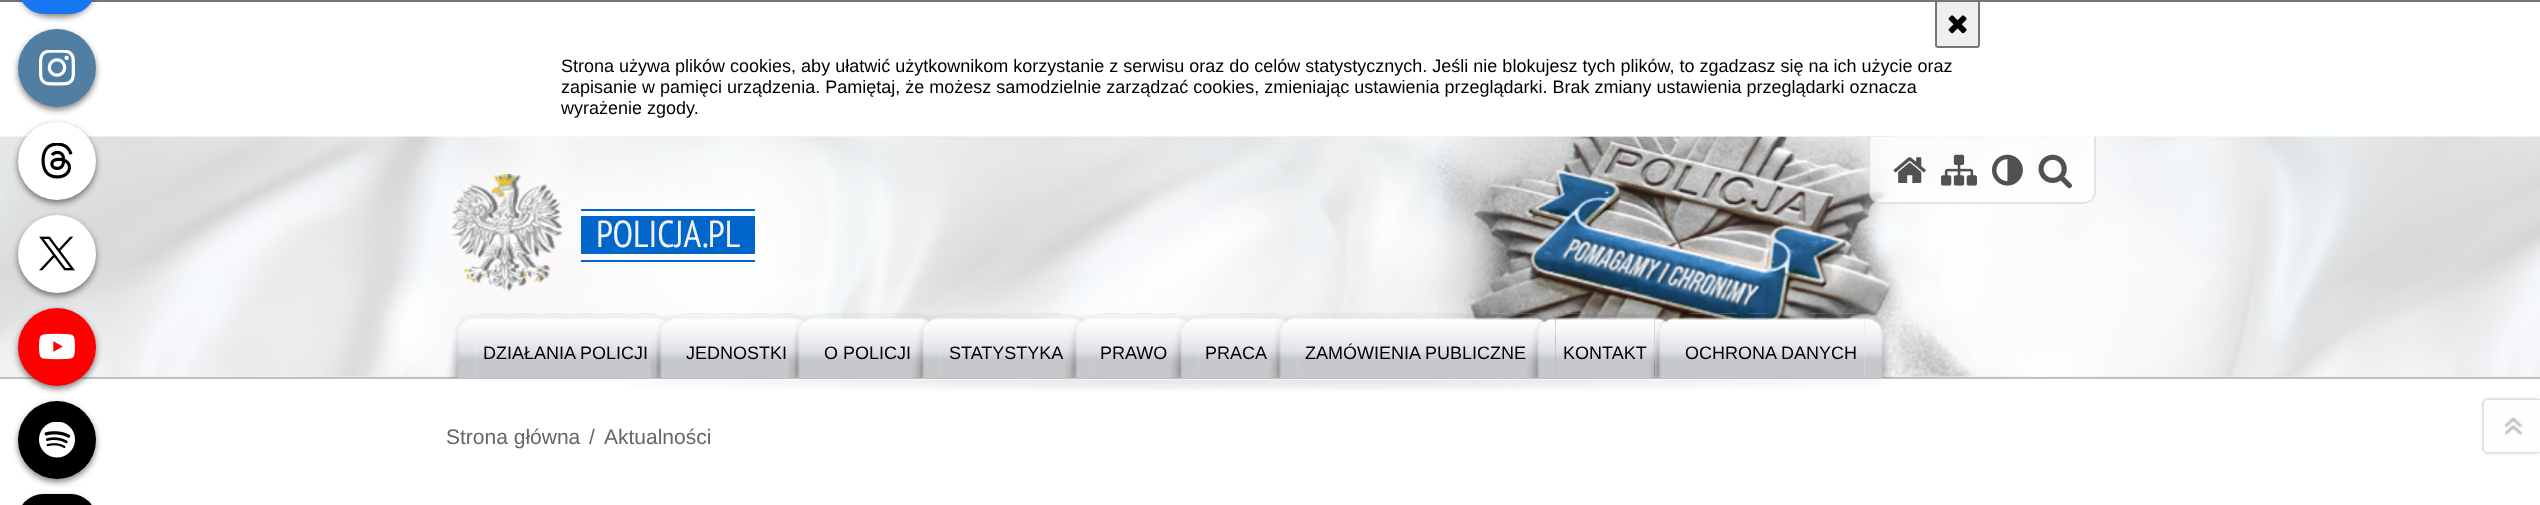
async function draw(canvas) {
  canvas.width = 2540
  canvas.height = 505
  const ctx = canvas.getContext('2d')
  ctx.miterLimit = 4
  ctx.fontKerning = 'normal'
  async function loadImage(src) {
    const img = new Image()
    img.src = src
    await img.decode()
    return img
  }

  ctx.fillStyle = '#fff'
  ctx.fillRect(0, 0, 2540, 505)
  ctx.fillStyle = '#767676'
  ctx.fillRect(0, 0, 2540, 2)
  ctx.fillStyle = '#00000080'
  ctx.filter = 'blur(3px)'
  ctx.beginPath()
  ctx.roundRect(18, -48, 78, 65, 39)
  ctx.fill()
  ctx.filter = 'none'
  ctx.fillStyle = '#1877f2'
  ctx.beginPath()
  ctx.roundRect(18, -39, 78, 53, 39)
  ctx.fill()
  ctx.fillStyle = '#00000080'
  ctx.filter = 'blur(3px)'
  ctx.beginPath()
  ctx.roundRect(18, 32, 78, 78, 39)
  ctx.fill()
  ctx.filter = 'none'
  ctx.fillStyle = '#517fa4'
  ctx.beginPath()
  ctx.arc(57, 68, 39, 0, 2 * Math.PI)
  ctx.fill()
  ctx.drawImage(await loadImage('image0.png'), 39, 50, 36, 36)
  ctx.drawImage(await loadImage('image6.png'), 0, 136, 2540, 241)
  ctx.fillStyle = '#00000080'
  ctx.filter = 'blur(3px)'
  ctx.beginPath()
  ctx.roundRect(18, 125, 78, 78, 39)
  ctx.fill()
  ctx.filter = 'none'
  ctx.fillStyle = '#fff'
  ctx.beginPath()
  ctx.arc(57, 161, 39, 0, 2 * Math.PI)
  ctx.fill()
  ctx.drawImage(await loadImage('image1.png'), 41, 143, 32, 36)
  ctx.fillStyle = '#00000080'
  ctx.filter = 'blur(3px)'
  ctx.beginPath()
  ctx.roundRect(18, 218, 78, 78, 39)
  ctx.fill()
  ctx.filter = 'none'
  ctx.fillStyle = '#fff'
  ctx.beginPath()
  ctx.arc(57, 254, 39, 0, 2 * Math.PI)
  ctx.fill()
  ctx.drawImage(await loadImage('image2.png'), 39, 236, 36, 35)
  ctx.fillStyle = '#c1c1c1'
  ctx.fillRect(0, 377, 2540, 2)
  ctx.fillStyle = '#00000080'
  ctx.filter = 'blur(3px)'
  ctx.beginPath()
  ctx.roundRect(18, 311, 78, 78, 39)
  ctx.fill()
  ctx.filter = 'none'
  ctx.fillStyle = '#f00'
  ctx.beginPath()
  ctx.arc(57, 347, 39, 0, 2 * Math.PI)
  ctx.fill()
  ctx.drawImage(await loadImage('image3.png'), 39, 333, 36, 27)
  ctx.fillStyle = '#00000080'
  ctx.filter = 'blur(3px)'
  ctx.beginPath()
  ctx.roundRect(18, 404, 78, 78, 39)
  ctx.fill()
  ctx.filter = 'none'
  ctx.fillStyle = '#000'
  ctx.beginPath()
  ctx.arc(57, 440, 39, 0, 2 * Math.PI)
  ctx.fill()
  ctx.drawImage(await loadImage('image4.png'), 39, 422, 36, 36)
  ctx.fillStyle = '#00000080'
  ctx.filter = 'blur(3px)'
  ctx.beginPath()
  ctx.roundRect(18, 497, 78, 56, 39)
  ctx.fill()
  ctx.filter = 'none'
  ctx.fillStyle = '#000'
  ctx.beginPath()
  ctx.roundRect(18, 494, 78, 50, 39)
  ctx.fill()
  ctx.fillStyle = '#efefef'
  ctx.beginPath()
  ctx.roundRect(1936, 1, 43, 46, 2)
  ctx.fill()
  ctx.strokeStyle = '#767676'
  ctx.lineWidth = 2
  ctx.stroke()
  ctx.drawImage(await loadImage('image5.png'), 1948, 15, 19, 19)
  ctx.font = '18px Liberation Sans'
  ctx.fillStyle = '#000'
  ctx.fillText('Strona używa plików cookies, aby ułatwić użytkownikom korzystanie z serwisu oraz do celów statystycznych. Jeśli nie blokujesz tych plików, to zgadzasz się na ich użycie oraz', 561, 72)
  ctx.fillText('zapisanie w pamięci urządzenia. Pamiętaj, że możesz samodzielnie zarządzać cookies, zmieniając ustawienia przeglądarki. Brak zmiany ustawienia przeglądarki oznacza', 561, 93)
  ctx.fillText('wyrażenie zgody.', 561, 114)
  ctx.drawImage(await loadImage('image7.png'), 625, 379, 1255, 12)
  ctx.drawImage(await loadImage('image8.png'), 586, 136, 1567, 241)
  ctx.fillStyle = '#ffffffb3'
  ctx.beginPath()
  ctx.roundRect(1869, 137, 227, 67, [0, 0, 12, 12])
  ctx.fill()
  ctx.save()
  ctx.beginPath()
  ctx.rect(0, 137, 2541, 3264)
  ctx.clip()
  ctx.fillStyle = '#0000001a'
  ctx.beginPath()
  ctx.moveTo(1869, 136)
  ctx.lineTo(2096, 136)
  ctx.lineTo(2096, 192)
  ctx.bezierCurveTo(2096, 199, 2090, 204, 2083, 204)
  ctx.lineTo(1881, 204)
  ctx.bezierCurveTo(1874, 204, 1869, 199, 1869, 192)
  ctx.closePath()
  ctx.moveTo(1870, 136)
  ctx.lineTo(2094, 136)
  ctx.lineTo(2094, 192)
  ctx.bezierCurveTo(2094, 198, 2089, 202, 2083, 202)
  ctx.lineTo(1881, 202)
  ctx.bezierCurveTo(1875, 202, 1870, 198, 1870, 192)
  ctx.closePath()
  ctx.fill('evenodd')
  ctx.restore()
  ctx.drawImage(await loadImage('image9.png'), 1893, 157, 33, 26)
  ctx.drawImage(await loadImage('image10.png'), 1941, 154, 36, 32)
  ctx.drawImage(await loadImage('image11.png'), 1992, 154, 31, 32)
  ctx.drawImage(await loadImage('image12.png'), 2038, 154, 34, 35)
  ctx.drawImage(await loadImage('image13.png'), 451, 174, 112, 118)
  ctx.fillStyle = '#06c'
  ctx.fillRect(581, 209, 174, 2)
  ctx.fillRect(581, 260, 174, 2)
  ctx.fillRect(581, 216, 174, 38)
  ctx.font = '37.5px PT Sans Narrow'
  ctx.fillStyle = '#f1f1f1'
  ctx.fillText('POLICJA.PL', 596, 247)
  ctx.drawImage(await loadImage('image14.png'), 655, 314, 29, 64)
  ctx.drawImage(await loadImage('image15.png'), 447, 314, 29, 64)
  ctx.drawImage(await loadImage('image16.png'), 475, 313, 181, 65)
  ctx.font = '18px Liberation Sans'
  ctx.fillStyle = '#000'
  ctx.fillText('DZIAŁANIA POLICJI', 483, 359)
  ctx.drawImage(await loadImage('image17.png'), 793, 314, 29, 64)
  ctx.drawImage(await loadImage('image18.png'), 650, 314, 28, 64)
  ctx.drawImage(await loadImage('image19.png'), 678, 313, 116, 65)
  ctx.fillText('JEDNOSTKI', 686, 359)
  ctx.drawImage(await loadImage('image20.png'), 918, 314, 28, 64)
  ctx.drawImage(await loadImage('image21.png'), 788, 314, 28, 64)
  ctx.drawImage(await loadImage('image22.png'), 816, 313, 102, 65)
  ctx.fillText('O POLICJI', 824, 359)
  ctx.drawImage(await loadImage('image23.png'), 1071, 314, 28, 64)
  ctx.drawImage(await loadImage('image24.png'), 912, 314, 29, 64)
  ctx.drawImage(await loadImage('image25.png'), 940, 313, 131, 65)
  ctx.fillText('STATYSTYKA', 949, 359)
  ctx.drawImage(await loadImage('image26.png'), 1176, 314, 28, 64)
  ctx.drawImage(await loadImage('image27.png'), 1065, 314, 29, 64)
  ctx.drawImage(await loadImage('image28.png'), 1093, 313, 83, 65)
  ctx.fillText('PRAWO', 1100, 359)
  ctx.drawImage(await loadImage('image29.png'), 1275, 314, 28, 64)
  ctx.drawImage(await loadImage('image30.png'), 1170, 314, 29, 64)
  ctx.drawImage(await loadImage('image31.png'), 1198, 313, 77, 65)
  ctx.fillText('PRACA', 1205, 359)
  ctx.drawImage(await loadImage('image32.png'), 1533, 315, 28, 63)
  ctx.drawImage(await loadImage('image33.png'), 1269, 314, 29, 64)
  ctx.drawImage(await loadImage('image34.png'), 1297, 313, 236, 65)
  ctx.fillText('ZAMÓWIENIA PUBLICZNE', 1305, 359)
  ctx.drawImage(await loadImage('image35.png'), 1654, 315, 29, 63)
  ctx.drawImage(await loadImage('image36.png'), 1527, 315, 29, 63)
  ctx.drawImage(await loadImage('image37.png'), 1555, 313, 100, 65)
  ctx.fillText('KONTAKT', 1563, 359)
  ctx.drawImage(await loadImage('image38.png'), 1864, 315, 29, 63)
  ctx.drawImage(await loadImage('image39.png'), 1649, 315, 28, 63)
  ctx.drawImage(await loadImage('image40.png'), 1677, 313, 188, 65)
  ctx.fillText('OCHRONA DANYCH', 1685, 359)
  ctx.font = '21px Liberation Sans'
  ctx.fillStyle = '#666'
  ctx.fillText('Strona główna', 446, 444)
  ctx.fillText('/', 589, 444)
  ctx.fillText('Aktualności', 604, 444)
  ctx.fillStyle = '#00000040'
  ctx.filter = 'blur(1.5px)'
  ctx.beginPath()
  ctx.roundRect(2483, 399, 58, 54, 5)
  ctx.fill()
  ctx.filter = 'none'
  ctx.fillStyle = '#fefefe'
  ctx.beginPath()
  ctx.moveTo(2488, 399)
  ctx.lineTo(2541, 399)
  ctx.lineTo(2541, 453)
  ctx.lineTo(2488, 453)
  ctx.bezierCurveTo(2485, 453, 2483, 451, 2483, 448)
  ctx.lineTo(2483, 404)
  ctx.bezierCurveTo(2483, 401, 2485, 399, 2488, 399)
  ctx.closePath()
  ctx.fill()
  ctx.fillStyle = '#e1e1e1'
  ctx.beginPath()
  ctx.moveTo(2487, 399)
  ctx.lineTo(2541, 399)
  ctx.lineTo(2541, 453)
  ctx.lineTo(2487, 453)
  ctx.bezierCurveTo(2485, 453, 2482, 451, 2482, 448)
  ctx.lineTo(2482, 404)
  ctx.bezierCurveTo(2482, 401, 2485, 399, 2487, 399)
  ctx.closePath()
  ctx.moveTo(2487, 400)
  ctx.lineTo(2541, 400)
  ctx.lineTo(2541, 452)
  ctx.lineTo(2487, 452)
  ctx.bezierCurveTo(2485, 452, 2484, 450, 2484, 448)
  ctx.lineTo(2484, 404)
  ctx.bezierCurveTo(2484, 402, 2485, 400, 2487, 400)
  ctx.closePath()
  ctx.fill('evenodd')
  ctx.drawImage(await loadImage('image41.png'), 2505, 417, 17, 18)
}

draw(document.querySelector('canvas'))
